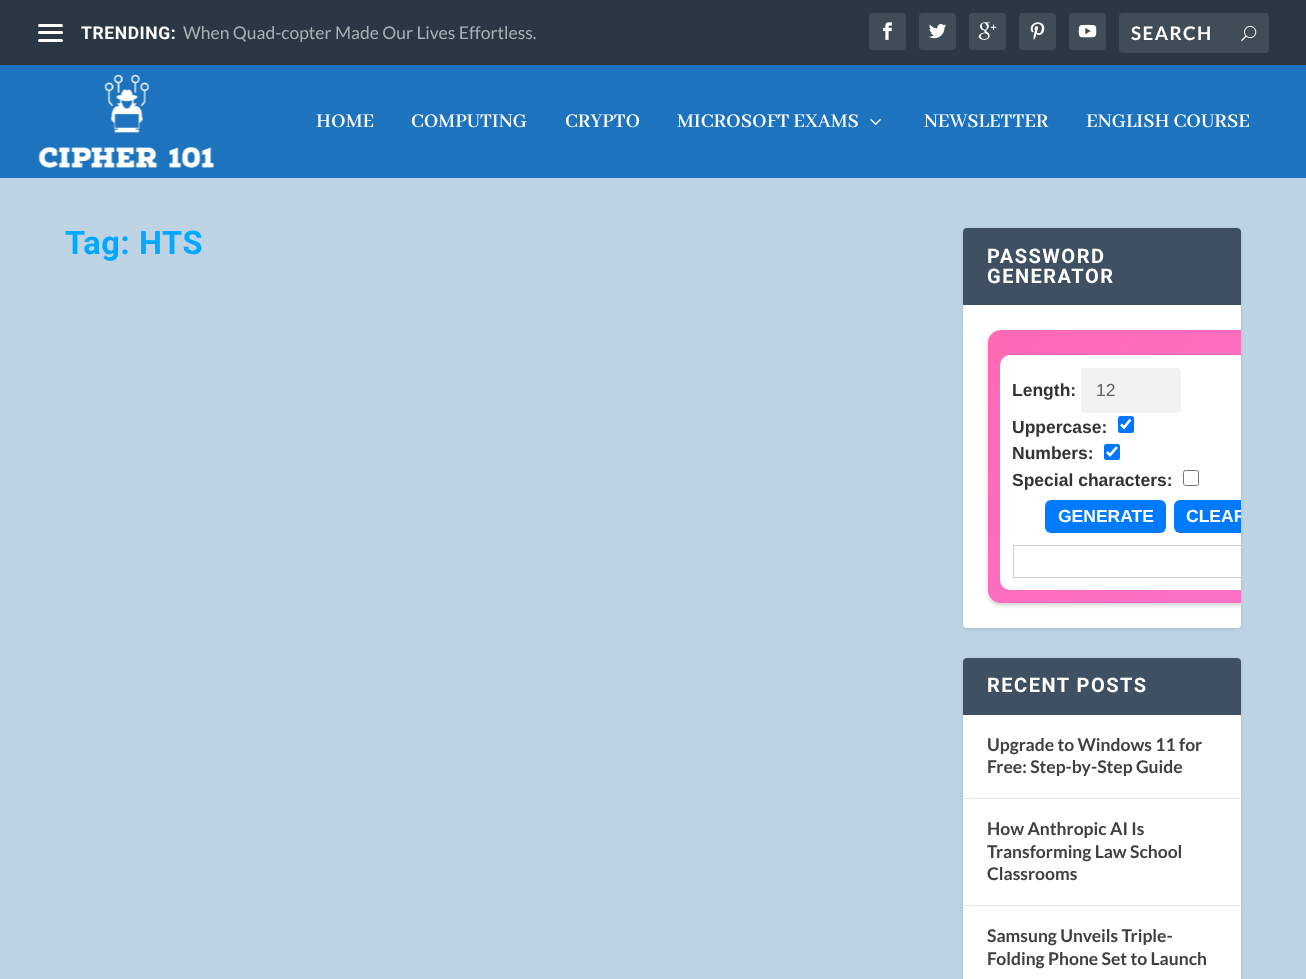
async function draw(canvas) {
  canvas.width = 1306
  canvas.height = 979
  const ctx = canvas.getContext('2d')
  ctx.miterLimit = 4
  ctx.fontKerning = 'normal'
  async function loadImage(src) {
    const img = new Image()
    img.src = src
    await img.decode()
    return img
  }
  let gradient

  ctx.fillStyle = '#bed4e5'
  ctx.fillRect(0, 0, 1306, 979)
  ctx.fillStyle = '#2b3843'
  ctx.fillRect(0, 0, 1306, 65)
  ctx.fillStyle = '#fff'
  ctx.beginPath()
  ctx.roundRect(38, 24, 25, 3, 1.5)
  ctx.fill()
  ctx.beginPath()
  ctx.roundRect(38, 31, 25, 3, 1.5)
  ctx.fill()
  ctx.beginPath()
  ctx.roundRect(38, 39, 25, 3, 1.5)
  ctx.fill()
  ctx.letterSpacing = '0.6px'
  ctx.font = 'bold 17.5px Roboto'
  ctx.fillText('TRENDING:', 81, 39)
  ctx.letterSpacing = '0px'
  ctx.font = '17.5px Lato'
  ctx.fillStyle = '#aaafb4'
  ctx.fillText('When Quad-copter Made Our Lives Effortless.', 183, 39)
  ctx.fillStyle = '#404c56'
  ctx.beginPath()
  ctx.roundRect(869, 13, 37, 37, 4)
  ctx.fill()
  ctx.drawImage(await loadImage('image0.png'), 883, 22, 9, 18)
  ctx.beginPath()
  ctx.roundRect(919, 13, 37, 37, 4)
  ctx.fill()
  ctx.drawImage(await loadImage('image1.png'), 929, 24, 18, 15)
  ctx.beginPath()
  ctx.roundRect(969, 13, 37, 37, 4)
  ctx.fill()
  ctx.drawImage(await loadImage('image2.png'), 978, 22, 19, 18)
  ctx.beginPath()
  ctx.roundRect(1019, 13, 37, 37, 4)
  ctx.fill()
  ctx.drawImage(await loadImage('image3.png'), 1030, 22, 15, 18)
  ctx.beginPath()
  ctx.roundRect(1069, 13, 37, 37, 4)
  ctx.fill()
  ctx.drawImage(await loadImage('image4.png'), 1078, 24, 19, 14)
  ctx.beginPath()
  ctx.roundRect(1119, 13, 150, 40, 4)
  ctx.fill()
  ctx.letterSpacing = '1.5px'
  ctx.font = 'bold 18.75px Lato'
  ctx.fillStyle = '#fff'
  ctx.fillText('SEARCH', 1131, 40)
  ctx.drawImage(await loadImage('image5.png'), 1241, 25, 16, 16)
  ctx.fillStyle = '#1e73be'
  ctx.fillRect(0, 65, 1306, 113)
  ctx.drawImage(await loadImage('image6.png'), 38, 74, 177, 94)
  ctx.letterSpacing = '0px'
  ctx.font = '600 21.25px Abhaya Libre SemiBold'
  ctx.fillStyle = '#fff'
  ctx.fillText('HOME', 316, 127)
  ctx.fillText('COMPUTING', 411, 127)
  ctx.fillText('CRYPTO', 565, 127)
  ctx.fillText('MICROSOFT EXAMS', 677, 127)
  ctx.drawImage(await loadImage('image7.png'), 870, 119, 11, 6)
  ctx.fillText('NEWSLETTER', 924, 127)
  ctx.fillText('ENGLISH COURSE', 1086, 127)
  ctx.letterSpacing = '0.6px'
  ctx.font = 'bold 32.5px Roboto'
  ctx.fillStyle = '#00a8ff'
  ctx.fillText('Tag: HTS', 65, 254)
  ctx.fillStyle = '#0000001a'
  ctx.filter = 'blur(2px)'
  ctx.beginPath()
  ctx.roundRect(963, 229, 278, 400, 4)
  ctx.fill()
  ctx.filter = 'none'
  ctx.fillStyle = '#fff'
  ctx.beginPath()
  ctx.roundRect(963, 228, 278, 400, 4)
  ctx.fill()
  ctx.fillStyle = '#3e5062'
  ctx.beginPath()
  ctx.roundRect(963, 228, 278, 77, [4, 4, 0, 0])
  ctx.fill()
  ctx.letterSpacing = '1.5px'
  ctx.font = 'bold 20px Roboto'
  ctx.fillStyle = '#fff'
  ctx.fillText('PASSWORD', 987, 263)
  ctx.fillText('GENERATOR', 987, 283)
  ctx.save()
  ctx.beginPath()
  ctx.roundRect(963, 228, 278, 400, 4)
  ctx.clip()
  ctx.fillStyle = '#00000033'
  ctx.filter = 'blur(2.5px)'
  ctx.beginPath()
  ctx.roundRect(988, 333, 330, 272, 13)
  ctx.fill()
  ctx.filter = 'none'
  ctx.restore()
  gradient = ctx.createLinearGradient(1102, 215, 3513, 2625)
  gradient.addColorStop(0, '#ff69b4')
  gradient.addColorStop(0.33, '#ee82ee')
  gradient.addColorStop(0.67, '#ff4500')
  gradient.addColorStop(1, '#1e90ff')
  ctx.fillStyle = gradient
  ctx.beginPath()
  ctx.roundRect(988, 330, 253, 273, [13, 0, 0, 13])
  ctx.fill()
  ctx.fillStyle = '#fff'
  ctx.beginPath()
  ctx.roundRect(1000, 355, 241, 235, [10, 0, 0, 10])
  ctx.fill()
  ctx.letterSpacing = '0px'
  ctx.font = 'bold 17.5px Liberation Sans'
  ctx.fillStyle = '#333'
  ctx.fillText('Length:', 1012, 396)
  ctx.fillStyle = '#f2f2f2'
  ctx.beginPath()
  ctx.roundRect(1081, 368, 100, 45, 4)
  ctx.fill()
  ctx.font = '17.5px Liberation Sans'
  ctx.fillStyle = '#616161'
  ctx.fillText('12', 1096, 396)
  ctx.font = 'bold 17.5px Liberation Sans'
  ctx.fillStyle = '#333'
  ctx.fillText('Uppercase:', 1012, 433)
  ctx.fillStyle = '#0075ff'
  ctx.beginPath()
  ctx.roundRect(1118, 416, 16, 17, 2.5)
  ctx.fill()
  ctx.beginPath()
  ctx.moveTo(1121, 424.5)
  ctx.lineTo(1124, 427.5)
  ctx.lineTo(1130.5, 419.5)
  ctx.strokeStyle = '#fff'
  ctx.lineWidth = 2.6
  ctx.stroke()
  ctx.fillStyle = '#333'
  ctx.fillText('Numbers:', 1012, 459)
  ctx.fillStyle = '#0075ff'
  ctx.beginPath()
  ctx.roundRect(1104, 444, 16, 16, 2.5)
  ctx.fill()
  ctx.beginPath()
  ctx.moveTo(1107, 452)
  ctx.lineTo(1110, 455)
  ctx.lineTo(1117, 447)
  ctx.stroke()
  ctx.fillStyle = '#333'
  ctx.fillText('Special characters:', 1012, 486)
  ctx.beginPath()
  ctx.roundRect(1183.5, 470.5, 15, 15, 2)
  ctx.strokeStyle = '#767676'
  ctx.lineWidth = 1
  ctx.stroke()
  ctx.fillStyle = '#007bff'
  ctx.beginPath()
  ctx.roundRect(1045, 500, 121, 33, 6)
  ctx.fill()
  ctx.fillStyle = '#fff'
  ctx.fillText('GENERATE', 1058, 522)
  ctx.fillStyle = '#007bff'
  ctx.beginPath()
  ctx.roundRect(1174, 500, 67, 33, [6, 0, 0, 6])
  ctx.fill()
  ctx.save()
  ctx.beginPath()
  ctx.roundRect(963, 228, 278, 400, 4)
  ctx.clip()
  ctx.fillStyle = '#fff'
  ctx.fillText('CLEAR', 1186, 522)
  ctx.restore()
  ctx.fillStyle = '#ccc'
  ctx.beginPath()
  ctx.moveTo(1013, 545)
  ctx.lineTo(1013, 578)
  ctx.lineTo(1241, 578)
  ctx.lineTo(1241, 577)
  ctx.lineTo(1014, 577)
  ctx.lineTo(1014, 546)
  ctx.lineTo(1241, 546)
  ctx.lineTo(1241, 545)
  ctx.closePath()
  ctx.fill()
  ctx.fillStyle = '#0000001a'
  ctx.filter = 'blur(2px)'
  ctx.beginPath()
  ctx.roundRect(963, 659, 278, 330, 4)
  ctx.fill()
  ctx.filter = 'none'
  ctx.fillStyle = '#fff'
  ctx.beginPath()
  ctx.roundRect(963, 658, 278, 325, 4)
  ctx.fill()
  ctx.fillStyle = '#3e5062'
  ctx.beginPath()
  ctx.roundRect(963, 658, 278, 57, [4, 4, 0, 0])
  ctx.fill()
  ctx.letterSpacing = '1.5px'
  ctx.font = 'bold 20px Roboto'
  ctx.fillStyle = '#fff'
  ctx.fillText('RECENT POSTS', 987, 692)
  ctx.fillStyle = '#e6e6e6'
  ctx.fillRect(963, 798, 278, 1)
  ctx.letterSpacing = '0px'
  ctx.font = 'bold 17.5px Lato'
  ctx.fillStyle = '#404040'
  ctx.fillText('Upgrade to Windows 11 for', 987, 751)
  ctx.fillText('Free: Step-by-Step Guide', 987, 773)
  ctx.fillStyle = '#e6e6e6'
  ctx.fillRect(963, 905, 278, 1)
  ctx.fillStyle = '#404040'
  ctx.fillText('How Anthropic AI Is', 987, 835)
  ctx.fillText('Transforming Law School', 987, 858)
  ctx.fillText('Classrooms', 987, 880)
  ctx.fillText('Samsung Unveils Triple-', 987, 942)
  ctx.fillText('Folding Phone Set to Launch', 987, 965)
}

draw(document.querySelector('canvas'))
